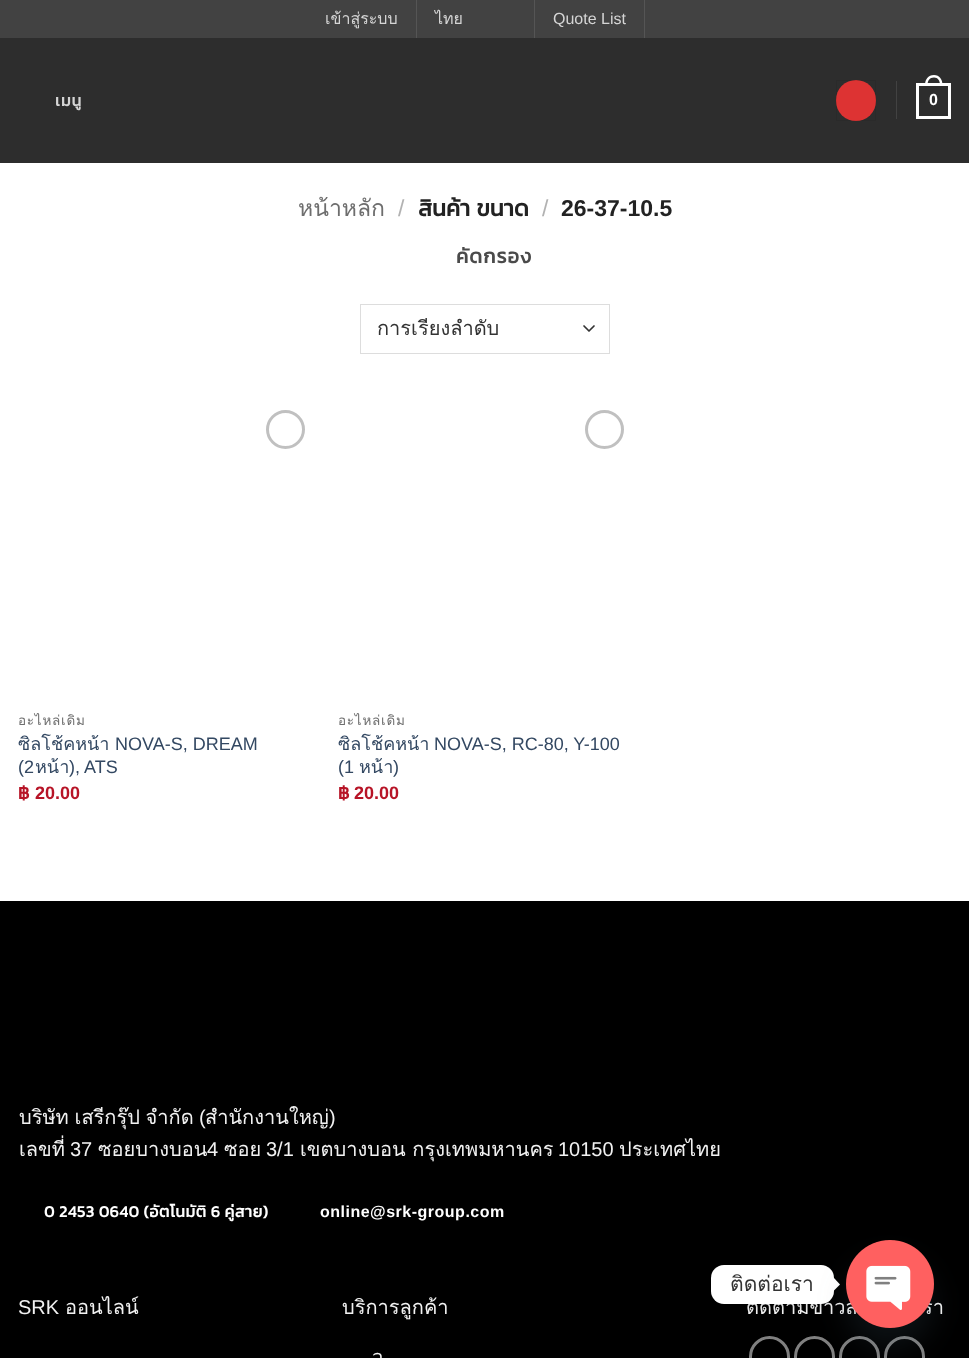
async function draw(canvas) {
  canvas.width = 969
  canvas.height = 1358
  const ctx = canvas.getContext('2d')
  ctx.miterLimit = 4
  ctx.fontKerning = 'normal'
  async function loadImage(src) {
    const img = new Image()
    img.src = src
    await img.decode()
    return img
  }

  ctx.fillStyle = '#fff'
  ctx.fillRect(0, 0, 969, 1358)
  ctx.fillStyle = '#424242'
  ctx.fillRect(0, 0, 969, 38)
  ctx.font = '16px Loma'
  ctx.fillStyle = '#d5d5d5'
  ctx.fillText('เข้าสู่ระบบ', 325, 24)
  ctx.fillStyle = '#555'
  ctx.fillRect(416, 0, 1, 38)
  ctx.fillStyle = '#d5d5d5'
  ctx.fillText('ไทย', 435, 24)
  ctx.fillStyle = '#555'
  ctx.fillRect(534, 0, 1, 38)
  ctx.font = '16px Liberation Sans'
  ctx.fillStyle = '#d5d5d5'
  ctx.fillText('Quote List', 553, 24)
  ctx.fillStyle = '#555'
  ctx.fillRect(644, 0, 1, 38)
  ctx.fillStyle = '#2d2d2d'
  ctx.fillRect(0, 38, 969, 125)
  ctx.letterSpacing = '1px'
  ctx.font = 'bold 16px Kanit'
  ctx.fillStyle = '#d5d5d5'
  ctx.fillText('เมนู', 55, 106)
  ctx.fillStyle = '#d33'
  ctx.beginPath()
  ctx.roundRect(836, 80, 40, 41, 20)
  ctx.fill()
  ctx.strokeStyle = '#0000000d'
  ctx.strokeRect(836.5, 80.5, 39, 40)
  ctx.fillStyle = '#424242'
  ctx.fillRect(896, 81, 1, 38)
  ctx.strokeStyle = '#fff'
  ctx.lineWidth = 3
  ctx.strokeRect(917.5, 84.5, 32, 33)
  ctx.fillStyle = '#fff'
  ctx.beginPath()
  ctx.moveTo(934, 75)
  ctx.bezierCurveTo(939.5, 75, 942.5, 79.5, 942.5, 85)
  ctx.lineTo(925, 85)
  ctx.bezierCurveTo(925, 79.5, 928, 75, 934, 75)
  ctx.closePath()
  ctx.moveTo(934, 77.5)
  ctx.bezierCurveTo(938, 77.5, 940, 81, 940, 85)
  ctx.lineTo(927.5, 85)
  ctx.bezierCurveTo(927.5, 81, 929.5, 77.5, 934, 77.5)
  ctx.closePath()
  ctx.fill('evenodd')
  ctx.letterSpacing = '0px'
  ctx.font = 'bold 16px Liberation Sans'
  ctx.fillText('0', 929, 105)
  ctx.font = '23px Loma'
  ctx.fillStyle = '#6e6e6e'
  ctx.fillText('หน้าหลัก', 298, 216)
  ctx.font = '23px Liberation Sans'
  ctx.fillStyle = '#b2b2b2'
  ctx.fillText('/', 398, 216)
  ctx.wordSpacing = '1px'
  ctx.font = 'bold 23px Kanit'
  ctx.fillStyle = '#222'
  ctx.fillText('สินค้า ขนาด', 418, 216)
  ctx.wordSpacing = '0px'
  ctx.font = '23px Liberation Sans'
  ctx.fillStyle = '#b2b2b2'
  ctx.fillText('/', 542, 216)
  ctx.font = 'bold 23px Liberation Sans'
  ctx.fillStyle = '#222'
  ctx.fillText('26-37-10.5', 561, 216)
  ctx.letterSpacing = '1px'
  ctx.font = 'bold 20px Kanit'
  ctx.fillStyle = '#4a4a4a'
  ctx.fillText('คัดกรอง', 456, 263)
  ctx.beginPath()
  ctx.moveTo(584, 326)
  ctx.lineTo(589, 331)
  ctx.lineTo(594, 326)
  ctx.strokeStyle = '#333'
  ctx.lineWidth = 1.7
  ctx.lineCap = 'round'
  ctx.lineJoin = 'round'
  ctx.stroke()
  ctx.strokeStyle = '#ddd'
  ctx.lineWidth = 1
  ctx.lineJoin = 'miter'
  ctx.strokeRect(360.5, 304.5, 249, 49)
  ctx.letterSpacing = '0px'
  ctx.font = '20px Loma'
  ctx.fillStyle = '#333'
  ctx.fillText('การเรียงลำดับ', 377, 335)
  ctx.beginPath()
  ctx.arc(285.5, 429.5, 18, 0, 2 * Math.PI)
  ctx.strokeStyle = '#c0c0c0'
  ctx.lineWidth = 3
  ctx.stroke()
  ctx.letterSpacing = '0.75px'
  ctx.font = '13.5px Loma'
  ctx.fillStyle = '#6e6e6e'
  ctx.fillText('อะไหล่เดิม', 18, 725)
  ctx.letterSpacing = '0px'
  ctx.font = '18px Loma'
  ctx.fillStyle = '#334862'
  ctx.fillText('ซิลโช้คหน้า', 18, 750)
  ctx.font = '18px Liberation Sans'
  ctx.fillText('NOVA-S, DREAM', 115, 750)
  ctx.fillText('(2', 18, 773)
  ctx.font = '18px Loma'
  ctx.fillText('หน้า', 35, 773)
  ctx.font = '18px Liberation Sans'
  ctx.fillText('), ATS', 69, 773)
  ctx.font = 'bold 18px Kanit'
  ctx.fillStyle = '#b71427'
  ctx.fillText('฿', 18, 799)
  ctx.font = 'bold 18px Liberation Sans'
  ctx.fillText('20.00', 35, 799)
  ctx.beginPath()
  ctx.arc(604.5, 429.5, 18, 0, 2 * Math.PI)
  ctx.stroke()
  ctx.letterSpacing = '0.75px'
  ctx.font = '13.5px Loma'
  ctx.fillStyle = '#6e6e6e'
  ctx.fillText('อะไหล่เดิม', 338, 725)
  ctx.letterSpacing = '0px'
  ctx.font = '18px Loma'
  ctx.fillStyle = '#334862'
  ctx.fillText('ซิลโช้คหน้า', 338, 750)
  ctx.font = '18px Liberation Sans'
  ctx.fillText('NOVA-S, RC-80, Y-100', 434, 750)
  ctx.fillText('(1', 338, 773)
  ctx.font = '18px Loma'
  ctx.fillText('หน้า', 359, 773)
  ctx.font = '18px Liberation Sans'
  ctx.fillText(')', 393, 773)
  ctx.font = 'bold 18px Kanit'
  ctx.fillStyle = '#b71427'
  ctx.fillText('฿', 338, 799)
  ctx.font = 'bold 18px Liberation Sans'
  ctx.fillText('20.00', 354, 799)
  ctx.fillStyle = '#000'
  ctx.fillRect(0, 901, 969, 457)
  ctx.wordSpacing = '-1px'
  ctx.font = '20px Loma'
  ctx.fillStyle = '#f1f1f1'
  ctx.fillText('บริษัท เสรีกรุ๊ป จำกัด', 19, 1124)
  ctx.wordSpacing = '0px'
  ctx.font = '20px Liberation Sans'
  ctx.fillText('(', 199, 1124)
  ctx.font = '20px Loma'
  ctx.fillText('สำนักงานใหญ่', 205, 1124)
  ctx.font = '20px Liberation Sans'
  ctx.fillText(')', 329, 1124)
  ctx.font = '20px Loma'
  ctx.fillText('เลขที่', 19, 1156)
  ctx.font = '20px Liberation Sans'
  ctx.fillText('37', 70, 1156)
  ctx.font = '20px Loma'
  ctx.fillText('ซอยบางบอน', 98, 1156)
  ctx.font = '20px Liberation Sans'
  ctx.fillText('4', 207, 1156)
  ctx.font = '20px Loma'
  ctx.fillText('ซอย', 224, 1156)
  ctx.font = '20px Liberation Sans'
  ctx.fillText('3/1', 266, 1156)
  ctx.font = '20px Loma'
  ctx.fillText('เขตบางบอน กรุงเทพมหานคร', 300, 1156)
  ctx.font = '20px Liberation Sans'
  ctx.fillText('10150', 558, 1156)
  ctx.font = '20px Loma'
  ctx.fillText('ประเทศไทย', 619, 1156)
  ctx.letterSpacing = '0.5px'
  ctx.font = 'bold 16px Kanit'
  ctx.fillStyle = '#fff'
  ctx.fillText('0 2453 0640 (อัตโนมัติ 6 คู่สาย)', 44, 1217)
  ctx.font = 'bold 16px Liberation Sans'
  ctx.fillText('online@srk-group.com', 320, 1217)
  ctx.letterSpacing = '0px'
  ctx.font = '20px Liberation Sans'
  ctx.fillStyle = '#f1f1f1'
  ctx.fillText('SRK', 18, 1314)
  ctx.font = '20px Loma'
  ctx.fillText('ออนไลน์', 65, 1314)
  ctx.fillText('บริการลูกค้า', 342, 1314)
  ctx.fillText('ว', 372, 1364)
  ctx.fillText('ติดตามข่าวส', 746, 1314)
  ctx.fillText('รา', 922, 1314)
  ctx.beginPath()
  ctx.roundRect(750.5, 1337.5, 38, 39, 19)
  ctx.strokeStyle = '#808080'
  ctx.stroke()
  ctx.beginPath()
  ctx.roundRect(795.5, 1337.5, 38, 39, 19)
  ctx.stroke()
  ctx.beginPath()
  ctx.roundRect(840.5, 1337.5, 38, 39, 19)
  ctx.stroke()
  ctx.beginPath()
  ctx.roundRect(885.5, 1337.5, 38, 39, 19)
  ctx.stroke()
  ctx.fillStyle = '#00000026'
  ctx.filter = 'blur(5px)'
  ctx.beginPath()
  ctx.roundRect(711, 1266, 123, 39, 13)
  ctx.fill()
  ctx.filter = 'none'
  ctx.fillStyle = '#fff'
  ctx.beginPath()
  ctx.roundRect(711, 1265, 123, 39, 13)
  ctx.fill()
  ctx.font = '21px Loma'
  ctx.fillStyle = '#333'
  ctx.fillText('ติดต่อเรา', 730, 1291)
  ctx.fillStyle = '#fff'
  ctx.beginPath()
  ctx.moveTo(834, 1290.5)
  ctx.lineTo(834, 1278)
  ctx.lineTo(840, 1284.5)
  ctx.closePath()
  ctx.fill()
  ctx.fillStyle = '#49687e29'
  ctx.filter = 'blur(15px)'
  ctx.beginPath()
  ctx.roundRect(846, 1260, 88, 88, 44)
  ctx.fill()
  ctx.filter = 'none'
  ctx.drawImage(await loadImage('image0.png'), 846, 1240, 88, 88)
}

draw(document.querySelector('canvas'))
